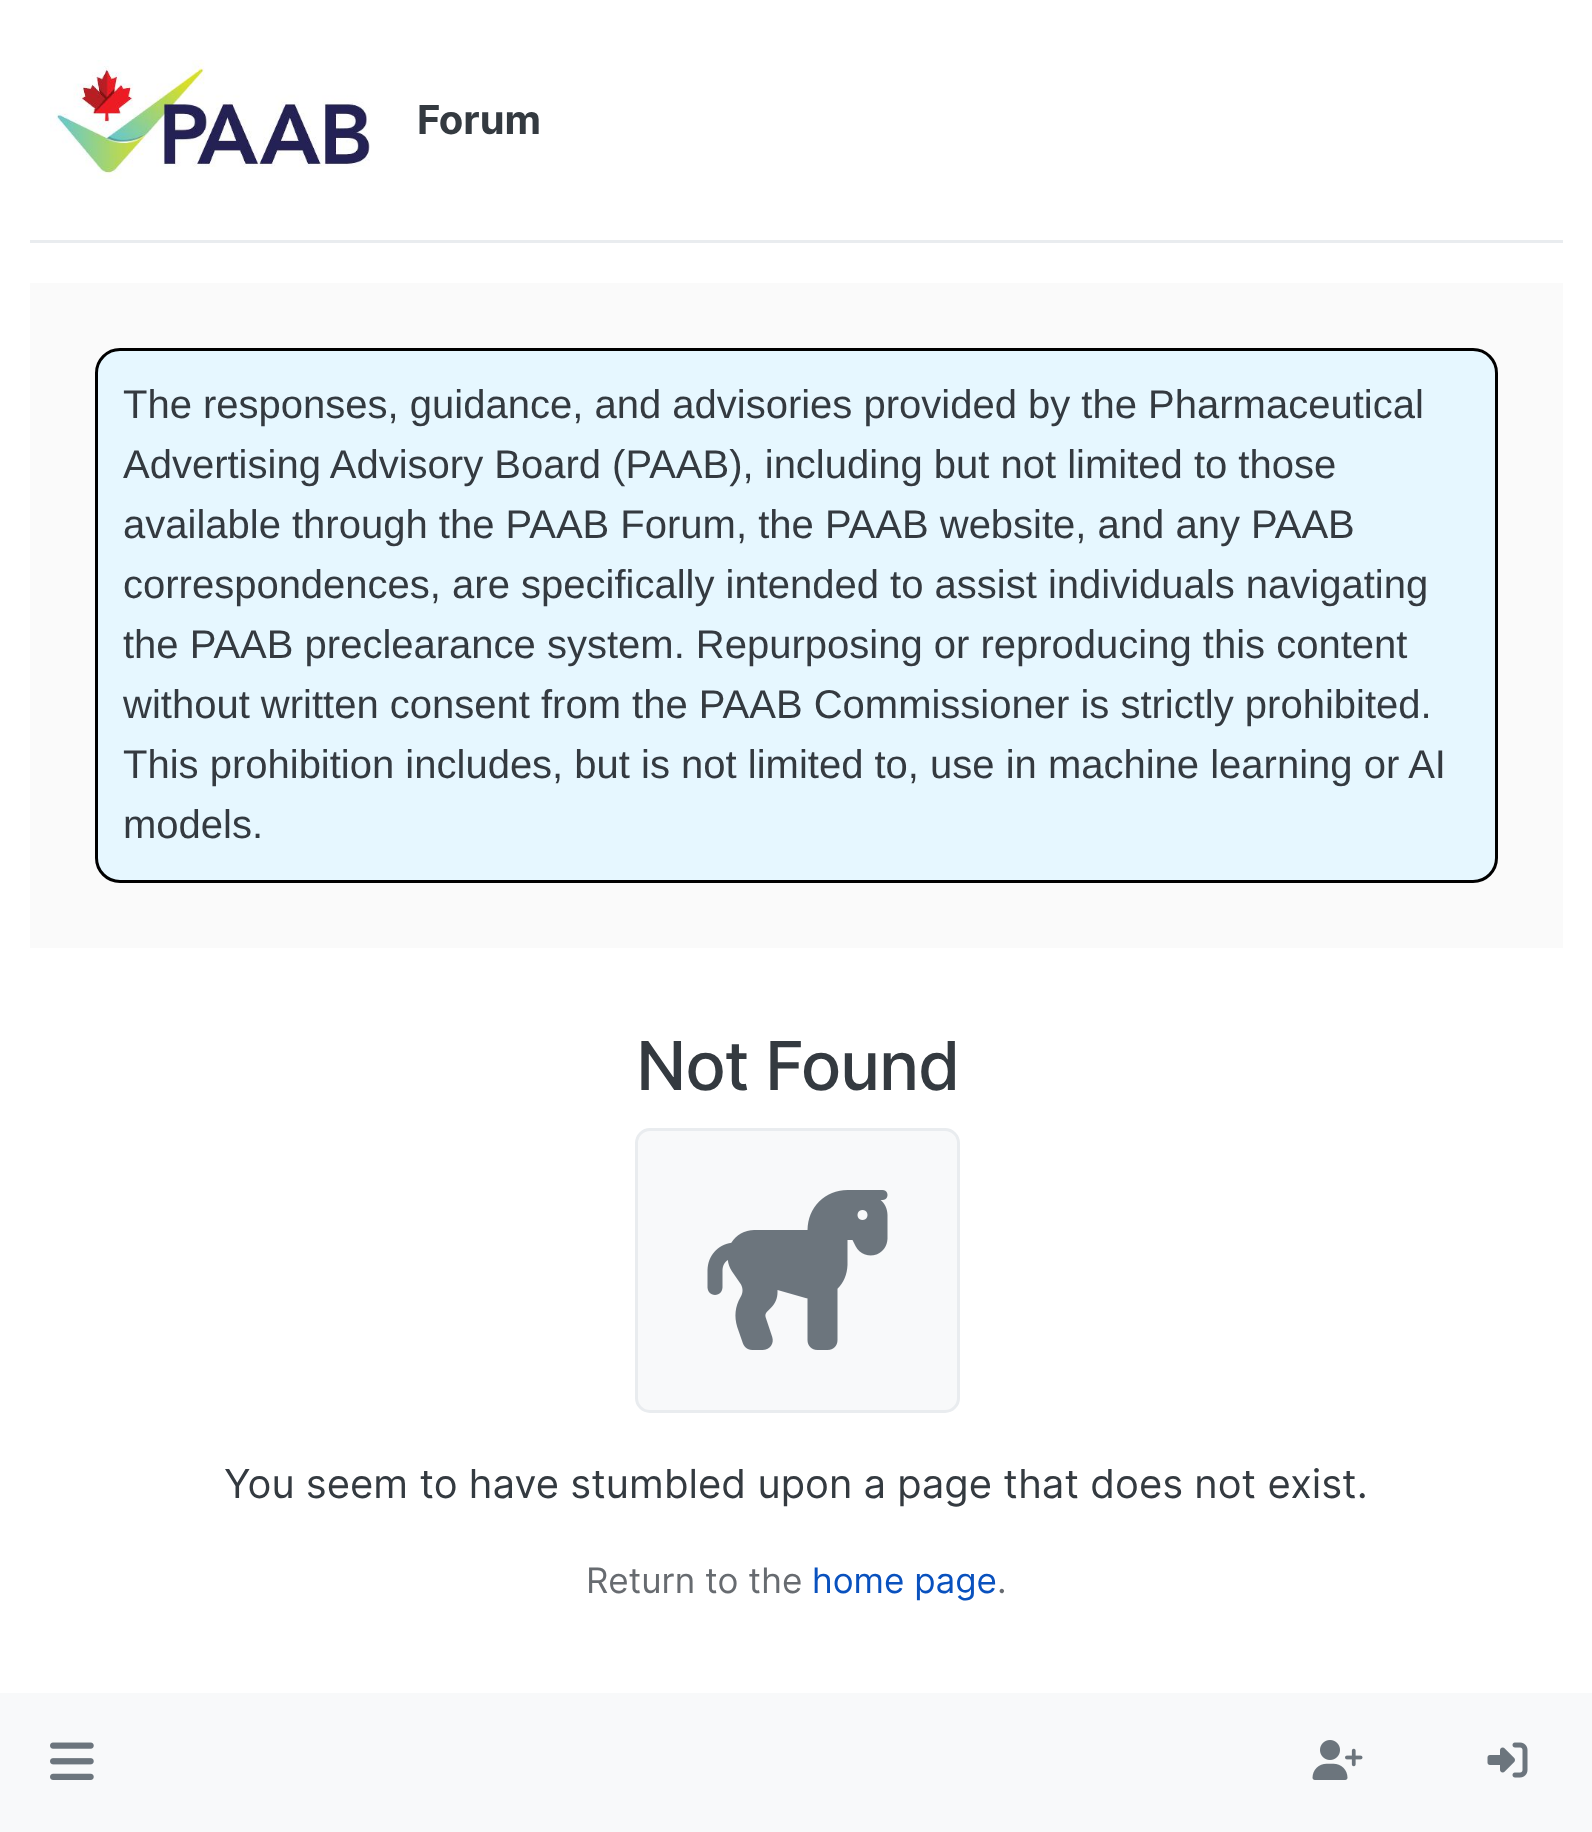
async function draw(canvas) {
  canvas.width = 1592
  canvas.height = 1832
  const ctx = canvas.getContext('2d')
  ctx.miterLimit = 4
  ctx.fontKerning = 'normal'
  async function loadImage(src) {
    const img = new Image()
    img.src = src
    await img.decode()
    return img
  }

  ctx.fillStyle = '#fff'
  ctx.fillRect(0, 0, 1592, 1832)
  ctx.fillStyle = '#e9ecef'
  ctx.fillRect(30, 240, 1533, 3)
  ctx.drawImage(await loadImage('image0.png'), 50, 60, 320, 119)
  ctx.font = 'bold 40px Inter'
  ctx.fillStyle = '#343a40'
  ctx.fillText('Forum', 417, 134)
  ctx.fillStyle = '#fafafa'
  ctx.fillRect(30, 283, 1533, 665)
  ctx.fillStyle = '#e6f7ff'
  ctx.beginPath()
  ctx.roundRect(96.5, 349.5, 1400, 532, 23.5)
  ctx.fill()
  ctx.strokeStyle = '#000'
  ctx.lineWidth = 3
  ctx.stroke()
  ctx.font = '40px Liberation Sans'
  ctx.fillStyle = '#343a40'
  ctx.fillText('The responses, guidance, and advisories provided by the Pharmaceutical', 123, 418)
  ctx.fillText('Advertising Advisory Board (PAAB), including but not limited to those', 123, 478)
  ctx.fillText('available through the PAAB Forum, the PAAB website, and any PAAB', 123, 538)
  ctx.fillText('correspondences, are specifically intended to assist individuals navigating', 123, 598)
  ctx.fillText('the PAAB preclearance system. Repurposing or reproducing this content', 123, 658)
  ctx.fillText('without written consent from the PAAB Commissioner is strictly prohibited.', 123, 718)
  ctx.fillText('This prohibition includes, but is not limited to, use in machine learning or AI', 123, 778)
  ctx.fillText('models.', 123, 838)
  ctx.letterSpacing = '-1.25px'
  ctx.font = '500 67.5px Inter'
  ctx.fillText('Not Found', 636, 1090)
  ctx.fillStyle = '#f8f9fa'
  ctx.beginPath()
  ctx.roundRect(636.5, 1129.5, 322, 282, 13.5)
  ctx.fill()
  ctx.strokeStyle = '#e9ecef'
  ctx.stroke()
  ctx.drawImage(await loadImage('image1.png'), 707, 1190, 181, 160)
  ctx.letterSpacing = '0px'
  ctx.font = '40px Inter'
  ctx.fillStyle = '#343a40'
  ctx.fillText('You seem to have stumbled upon a page that does not exist.', 224, 1498)
  ctx.font = '35px Inter'
  ctx.fillStyle = '#676b70'
  ctx.fillText('Return to the', 586, 1593)
  ctx.fillStyle = '#0951be'
  ctx.fillText('home page', 812, 1593)
  ctx.fillStyle = '#676b70'
  ctx.fillText('.', 997, 1593)
  ctx.fillStyle = '#f8f9fa'
  ctx.fillRect(0, 1693, 1592, 139)
  ctx.drawImage(await loadImage('image2.png'), 50, 1742, 44, 38)
  ctx.drawImage(await loadImage('image3.png'), 1312, 1740, 51, 40)
  ctx.drawImage(await loadImage('image4.png'), 1487, 1742, 41, 36)
}

draw(document.querySelector('canvas'))
